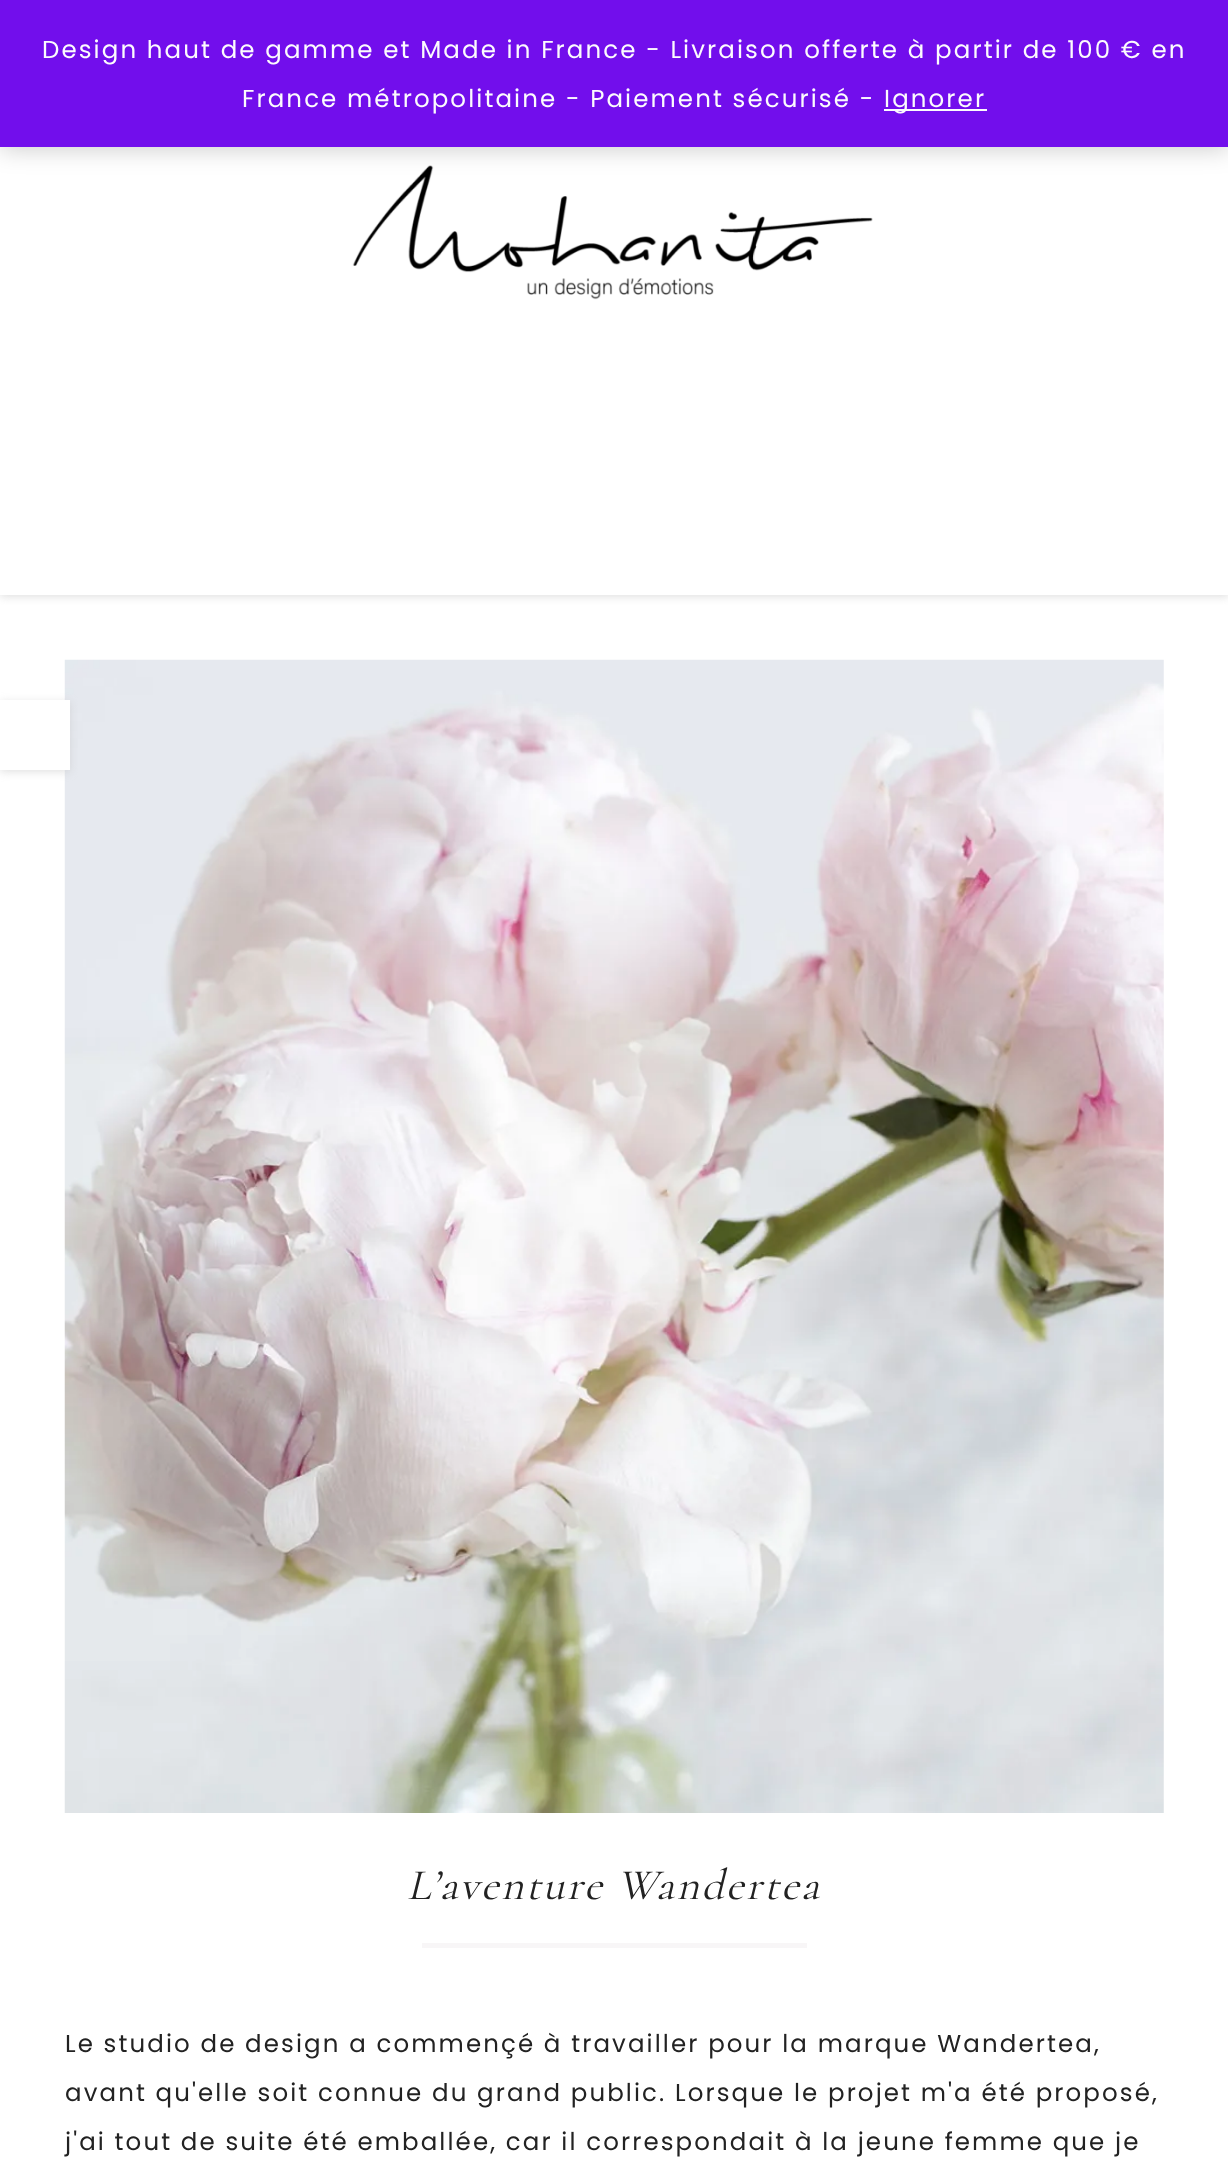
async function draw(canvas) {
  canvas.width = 1228
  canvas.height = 2163
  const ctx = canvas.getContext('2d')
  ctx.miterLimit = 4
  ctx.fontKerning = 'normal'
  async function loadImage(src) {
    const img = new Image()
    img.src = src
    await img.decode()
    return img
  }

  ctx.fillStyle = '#fff'
  ctx.fillRect(0, 0, 1228, 2163)
  ctx.save()
  ctx.beginPath()
  ctx.rect(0, 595, 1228, 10)
  ctx.clip()
  ctx.fillStyle = '#bebebe75'
  ctx.filter = 'blur(4.5px)'
  ctx.beginPath()
  ctx.rect(0, 51, 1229, 546)
  ctx.fill()
  ctx.filter = 'none'
  ctx.restore()
  ctx.drawImage(await loadImage('image0.png'), 352, 165, 521, 135)
  ctx.fillStyle = '#00000033'
  ctx.filter = 'blur(12px)'
  ctx.beginPath()
  ctx.rect(0, 2, 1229, 147)
  ctx.fill()
  ctx.filter = 'none'
  ctx.fillStyle = '#720eec'
  ctx.fillRect(0, 0, 1228, 147)
  ctx.letterSpacing = '2.1px'
  ctx.font = '24.5px Poppins'
  ctx.fillStyle = '#fcfbfe'
  ctx.fillText('Design haut de gamme et Made in France - Livraison offerte à partir de 100 € en', 42, 58)
  ctx.fillText('France métropolitaine - Paiement sécurisé -', 242, 107)
  ctx.fillRect(884, 109, 103, 2)
  ctx.fillText('Ignorer', 884, 107)
  ctx.drawImage(await loadImage('image1.png'), 64, 659, 1100, 1154)
  ctx.fillStyle = '#bebebe75'
  ctx.filter = 'blur(4.5px)'
  ctx.beginPath()
  ctx.rect(0, 702, 70, 70)
  ctx.fill()
  ctx.filter = 'none'
  ctx.fillStyle = '#fff'
  ctx.fillRect(0, 700, 70, 70)
  ctx.letterSpacing = '2.2px'
  ctx.font = 'italic 300 43.75px Cormorant'
  ctx.fillStyle = '#222'
  ctx.fillText('L’aventure Wandertea', 407, 1899)
  ctx.fillStyle = '#f8f6f7'
  ctx.fillRect(422, 1943, 385, 5)
  ctx.letterSpacing = '2.1px'
  ctx.font = '24.5px Poppins'
  ctx.fillStyle = '#222'
  ctx.fillText('Le studio de design a commençé à travailler pour la marque Wandertea,', 65, 2052)
  ctx.fillText('avant qu\'elle soit connue du grand public. Lorsque le projet m\'a été proposé,', 65, 2101)
  ctx.fillText('j\'ai tout de suite été emballée, car il correspondait à la jeune femme que je', 65, 2150)
}

draw(document.querySelector('canvas'))
